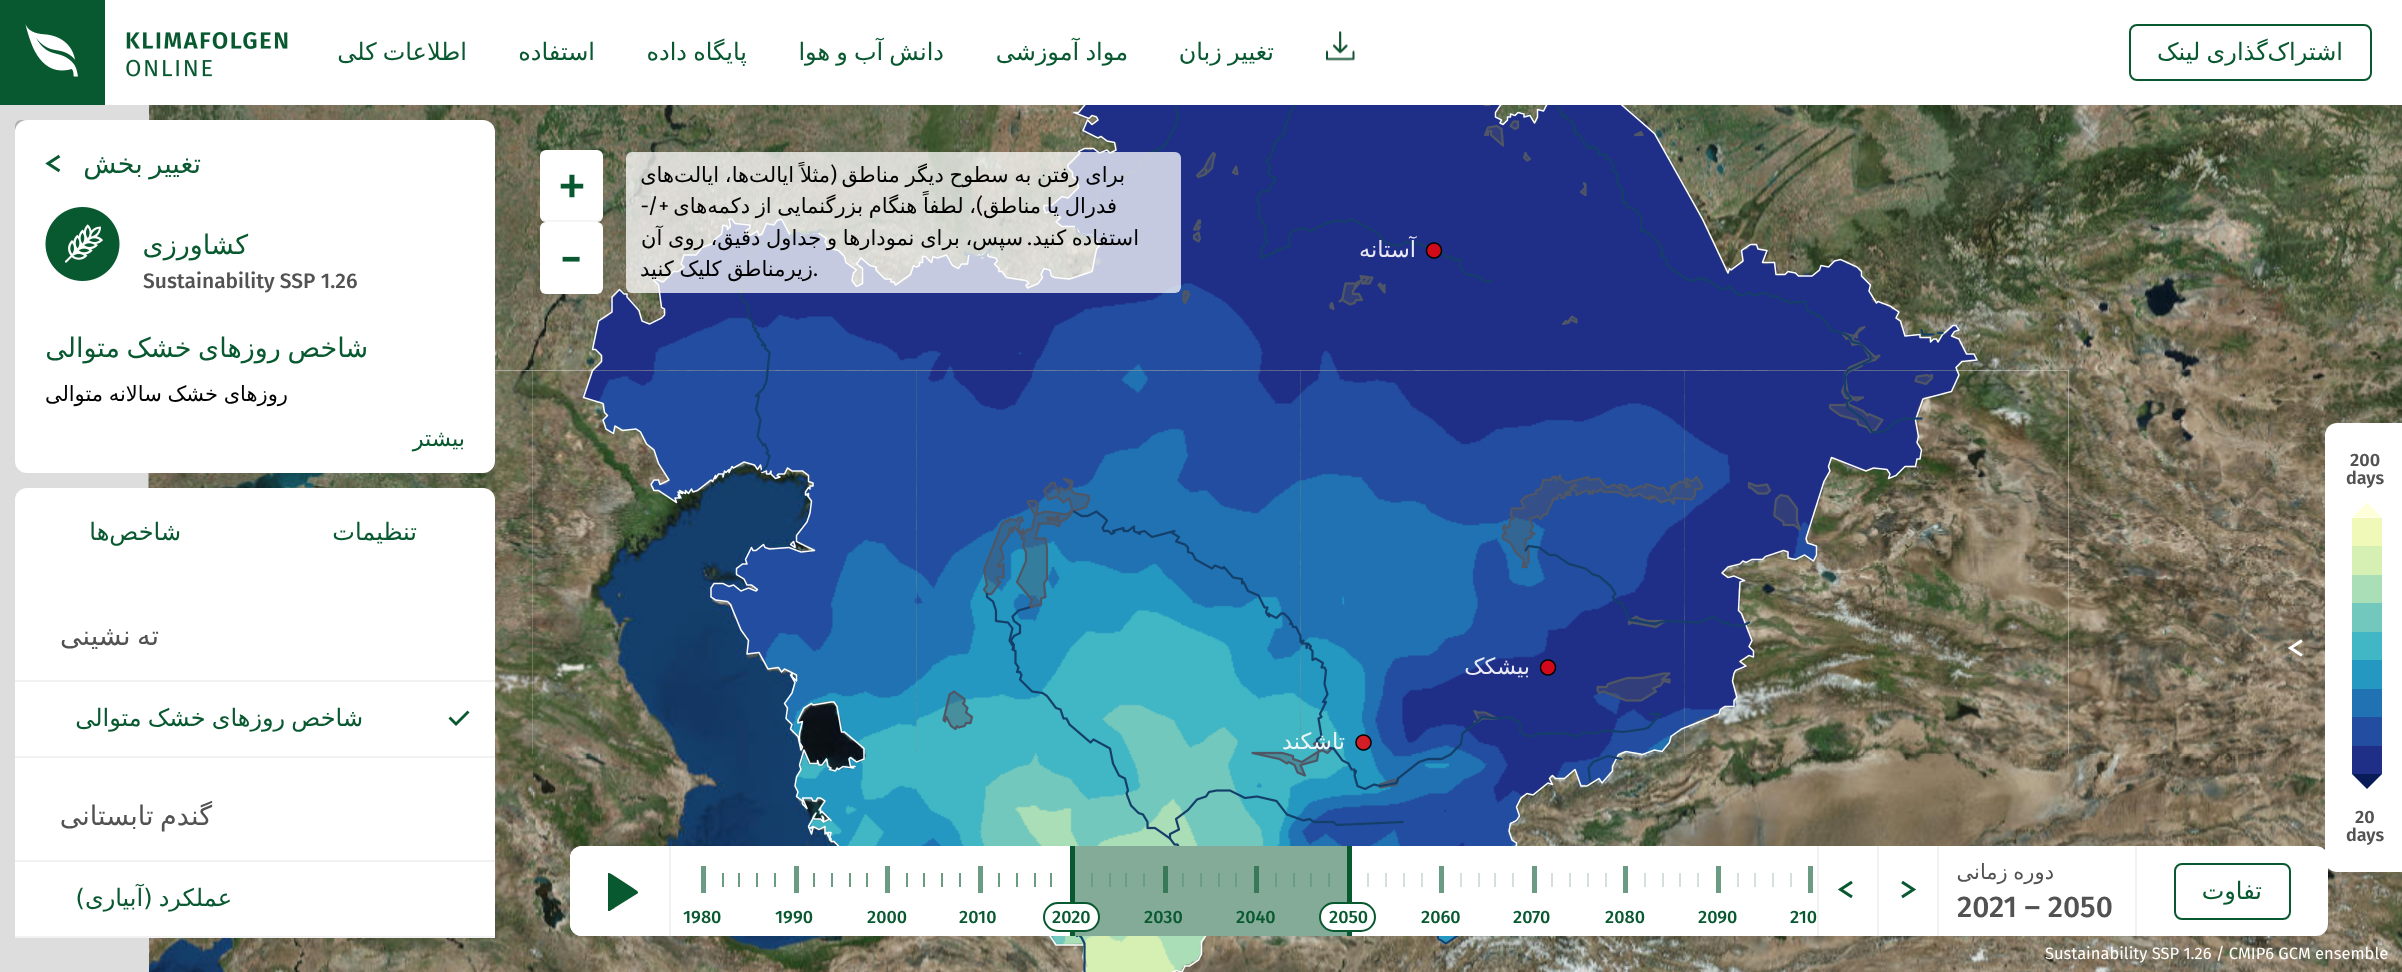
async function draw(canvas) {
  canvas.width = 2402
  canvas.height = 972
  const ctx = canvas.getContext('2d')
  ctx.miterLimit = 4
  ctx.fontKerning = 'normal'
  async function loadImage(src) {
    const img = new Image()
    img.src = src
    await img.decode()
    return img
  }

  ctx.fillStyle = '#ddd'
  ctx.fillRect(0, 0, 2402, 972)
  ctx.fillStyle = '#fff'
  ctx.fillRect(105, 0, 2297, 105)
  ctx.beginPath()
  ctx.roundRect(2130, 25, 241, 55, 7)
  ctx.strokeStyle = '#085830'
  ctx.lineWidth = 2
  ctx.stroke()
  ctx.wordSpacing = '-1.5px'
  ctx.direction = 'rtl'
  ctx.font = '24px DejaVu Sans'
  ctx.fillStyle = '#085830'
  ctx.fillText('اشتراک‌گذاری لینک', 2343, 60)
  ctx.drawImage(await loadImage('image0.png'), 1326, 31, 29, 30)
  ctx.fillText('تغییر زبان', 1274, 60)
  ctx.fillText('مواد آموزشی', 1128, 60)
  ctx.fillText('دانش آب و هوا', 944, 60)
  ctx.fillText('پایگاه داده', 747, 60)
  ctx.wordSpacing = '0px'
  ctx.fillText('استفاده', 595, 60)
  ctx.wordSpacing = '-1.5px'
  ctx.fillText('اطلاعات کلی', 467, 60)
  ctx.drawImage(await loadImage('image1.png'), 0, 0, 288, 105)
  ctx.drawImage(await loadImage('image15.png'), 2069, 754, 333, 218)
  ctx.drawImage(await loadImage('image12.png'), 916, 370, 385, 384)
  ctx.drawImage(await loadImage('image11.png'), 1300, 370, 385, 384)
  ctx.drawImage(await loadImage('image17.png'), 1301, 754, 384, 218)
  ctx.drawImage(await loadImage('image10.png'), 1684, 370, 385, 385)
  ctx.drawImage(await loadImage('image16.png'), 1685, 754, 384, 218)
  ctx.drawImage(await loadImage('image19.png'), 533, 754, 384, 218)
  ctx.drawImage(await loadImage('image13.png'), 532, 370, 385, 384)
  ctx.drawImage(await loadImage('image27.png'), 916, 370, 385, 384)
  ctx.drawImage(await loadImage('image26.png'), 1300, 370, 385, 385)
  ctx.drawImage(await loadImage('image29.png'), 1301, 754, 318, 190)
  ctx.drawImage(await loadImage('image18.png'), 917, 936, 384, 36)
  ctx.drawImage(await loadImage('image30.png'), 917, 754, 384, 218)
  ctx.drawImage(await loadImage('image4.png'), 1685, 105, 384, 265)
  ctx.drawImage(await loadImage('image5.png'), 1495, 105, 190, 83)
  ctx.drawImage(await loadImage('image6.png'), 917, 105, 201, 185)
  ctx.drawImage(await loadImage('image7.png'), 533, 105, 384, 265)
  ctx.drawImage(await loadImage('image21.png'), 1685, 187, 293, 183)
  ctx.drawImage(await loadImage('image22.png'), 1301, 105, 384, 265)
  ctx.drawImage(await loadImage('image23.png'), 917, 105, 384, 265)
  ctx.drawImage(await loadImage('image24.png'), 592, 217, 325, 153)
  ctx.drawImage(await loadImage('image25.png'), 1684, 370, 276, 360)
  ctx.drawImage(await loadImage('image28.png'), 582, 370, 335, 385)
  ctx.drawImage(await loadImage('image31.png'), 794, 754, 123, 92)
  ctx.drawImage(await loadImage('image32.png'), 582, 105, 1396, 867)
  ctx.drawImage(await loadImage('image34.png'), 942, 105, 992, 684)
  ctx.drawImage(await loadImage('image33.png'), 740, 105, 1204, 867)
  ctx.fillStyle = '#fff'
  ctx.beginPath()
  ctx.roundRect(570, 846, 1758, 90, 12)
  ctx.fill()
  ctx.drawImage(await loadImage('image9.png'), 2069, 370, 333, 384)
  ctx.beginPath()
  ctx.moveTo(2337, 423)
  ctx.lineTo(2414, 423)
  ctx.lineTo(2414, 872)
  ctx.lineTo(2337, 872)
  ctx.bezierCurveTo(2330.5, 872, 2325, 866.5, 2325, 860)
  ctx.lineTo(2325, 435)
  ctx.bezierCurveTo(2325, 428.5, 2330.5, 423, 2337, 423)
  ctx.closePath()
  ctx.fill()
  ctx.wordSpacing = '0px'
  ctx.direction = 'ltr'
  ctx.font = '600 18px Fira Sans'
  ctx.fillStyle = '#525252'
  ctx.fillText('200', 2350, 466)
  ctx.fillText('days', 2346, 484)
  ctx.fillStyle = '#ffffd9'
  ctx.beginPath()
  ctx.moveTo(2367, 502.5)
  ctx.lineTo(2382, 517.5)
  ctx.lineTo(2352, 517.5)
  ctx.closePath()
  ctx.fill('evenodd')
  ctx.fillStyle = '#f1f9b9'
  ctx.fillRect(2352, 518, 30, 28)
  ctx.fillStyle = '#d6efb3'
  ctx.fillRect(2352, 546, 30, 29)
  ctx.fillStyle = '#aadeb7'
  ctx.fillRect(2352, 575, 30, 28)
  ctx.fillStyle = '#73c8bd'
  ctx.fillRect(2352, 603, 30, 29)
  ctx.fillStyle = '#41b6c4'
  ctx.fillRect(2352, 632, 30, 28)
  ctx.beginPath()
  ctx.moveTo(2302, 640.5)
  ctx.lineTo(2290.5, 648)
  ctx.lineTo(2302, 655.5)
  ctx.strokeStyle = '#fff'
  ctx.lineWidth = 3
  ctx.stroke()
  ctx.fillStyle = '#2498c1'
  ctx.fillRect(2352, 660, 30, 29)
  ctx.fillStyle = '#2072b2'
  ctx.fillRect(2352, 689, 30, 28)
  ctx.fillStyle = '#234da0'
  ctx.fillRect(2352, 717, 30, 29)
  ctx.fillStyle = '#1f2f88'
  ctx.fillRect(2352, 746, 30, 28)
  ctx.fillStyle = '#081d58'
  ctx.beginPath()
  ctx.moveTo(2367, 789)
  ctx.lineTo(2382, 774)
  ctx.lineTo(2352, 774)
  ctx.closePath()
  ctx.fill('evenodd')
  ctx.fillStyle = '#525252'
  ctx.fillText('20', 2355, 823)
  ctx.fillText('days', 2346, 841)
  ctx.fillStyle = '#ffffffbf'
  ctx.beginPath()
  ctx.roundRect(626, 152, 555, 141, 6)
  ctx.fill()
  ctx.wordSpacing = '-1px'
  ctx.direction = 'rtl'
  ctx.font = '21px DejaVu Sans'
  ctx.fillStyle = '#000'
  ctx.fillText('برای رفتن به سطوح دیگر مناطق', 1125, 182)
  ctx.wordSpacing = '0px'
  ctx.font = '21px Fira Sans'
  ctx.fillText('(', 837, 182)
  ctx.wordSpacing = '-1px'
  ctx.font = '21px DejaVu Sans'
  ctx.fillText('مثلاً ایالت‌ها، ایالت‌های', 830, 182)
  ctx.fillText('فدرال یا مناطق', 1117, 213)
  ctx.wordSpacing = '0px'
  ctx.font = '21px Fira Sans'
  ctx.fillText(')', 983, 213)
  ctx.wordSpacing = '-1px'
  ctx.font = '21px DejaVu Sans'
  ctx.fillText('، لطفاً هنگام بزرگنمایی از دکمه‌های', 976, 213)
  ctx.wordSpacing = '0px'
  ctx.font = '21px Fira Sans'
  ctx.fillText('+/-', 669, 213)
  ctx.wordSpacing = '-1px'
  ctx.font = '21px DejaVu Sans'
  ctx.fillText('استفاده کنید', 1139, 245)
  ctx.wordSpacing = '0px'
  ctx.font = '21px Fira Sans'
  ctx.fillText('.', 1032, 245)
  ctx.wordSpacing = '-1px'
  ctx.font = '21px DejaVu Sans'
  ctx.fillText('سپس، برای نمودارها و جداول دقیق، روی آن', 1023, 245)
  ctx.wordSpacing = '0px'
  ctx.direction = 'ltr'
  ctx.font = '21px Fira Sans'
  ctx.fillText('.', 813, 276)
  ctx.wordSpacing = '-1px'
  ctx.direction = 'rtl'
  ctx.font = '21px DejaVu Sans'
  ctx.fillText('زیرمناطق کلیک کنید', 813, 276)
  ctx.fillStyle = '#fff'
  ctx.beginPath()
  ctx.roundRect(540, 150, 63, 72, 6)
  ctx.fill()
  ctx.beginPath()
  ctx.moveTo(600.5, 219.5)
  ctx.bezierCurveTo(599.5, 220.5, 598.5, 221, 597, 221)
  ctx.lineTo(546, 221)
  ctx.bezierCurveTo(544.5, 221, 543.5, 220.5, 542.5, 219.5)
  ctx.strokeStyle = '#f2f2f2'
  ctx.lineWidth = 1.5
  ctx.stroke()
  ctx.wordSpacing = '0px'
  ctx.direction = 'ltr'
  ctx.font = '60px Fira Sans'
  ctx.fillStyle = '#085830'
  ctx.fillText('+', 557, 206)
  ctx.fillStyle = '#fff'
  ctx.beginPath()
  ctx.roundRect(540, 222, 63, 72, 6)
  ctx.fill()
  ctx.fillStyle = '#085830'
  ctx.fillText('-', 559, 278)
  ctx.beginPath()
  ctx.roundRect(16.5, 121.5, 48, 95, 4.5)
  ctx.strokeStyle = '#b1b1b1'
  ctx.lineWidth = 3
  ctx.stroke()
  ctx.drawImage(await loadImage('image8.png'), 149, 105, 384, 265)
  ctx.drawImage(await loadImage('image14.png'), 148, 370, 385, 384)
  ctx.fillStyle = '#fff'
  ctx.beginPath()
  ctx.roundRect(15, 120, 480, 353, 12)
  ctx.fill()
  ctx.wordSpacing = '-2px'
  ctx.direction = 'rtl'
  ctx.font = '27px DejaVu Sans'
  ctx.fillStyle = '#085830'
  ctx.fillText('تغییر بخش', 201, 173)
  ctx.beginPath()
  ctx.moveTo(59.5, 156)
  ctx.lineTo(48, 163.5)
  ctx.lineTo(59.5, 171)
  ctx.strokeStyle = '#085830'
  ctx.stroke()
  ctx.wordSpacing = '0px'
  ctx.fillText('کشاورزی', 248, 254)
  ctx.drawImage(await loadImage('image2.png'), 45, 207, 75, 74)
  ctx.direction = 'ltr'
  ctx.font = '500 21px Fira Sans'
  ctx.fillStyle = '#525252'
  ctx.fillText('Sustainability SSP 1.26', 143, 288)
  ctx.wordSpacing = '-2px'
  ctx.direction = 'rtl'
  ctx.font = '27px DejaVu Sans'
  ctx.fillStyle = '#085830'
  ctx.fillText('شاخص روزهای خشک متوالی', 368, 357)
  ctx.wordSpacing = '-1px'
  ctx.font = '21px DejaVu Sans'
  ctx.fillStyle = '#000'
  ctx.fillText('روزهای خشک سالانه متوالی', 288, 401)
  ctx.wordSpacing = '0px'
  ctx.font = '22.5px DejaVu Sans'
  ctx.fillStyle = '#085830'
  ctx.fillText('بیشتر', 465, 446)
  ctx.fillStyle = '#fff'
  ctx.beginPath()
  ctx.roundRect(15, 488, 480, 90, [12, 12, 0, 0])
  ctx.fill()
  ctx.font = '24px DejaVu Sans'
  ctx.fillStyle = '#085830'
  ctx.fillText('تنظیمات', 417, 540)
  ctx.fillText('شاخص‌ها', 181, 540)
  ctx.drawImage(await loadImage('image20.png'), 149, 754, 384, 218)
  ctx.fillStyle = '#fff'
  ctx.fillRect(15, 578, 480, 358)
  ctx.wordSpacing = '-2px'
  ctx.font = '27px DejaVu Sans'
  ctx.fillStyle = '#525252'
  ctx.fillText('ته نشینی', 159, 645)
  ctx.fillStyle = '#f2f2f2'
  ctx.fillRect(15, 680, 480, 2)
  ctx.fillRect(15, 756, 480, 2)
  ctx.fillStyle = '#085830'
  ctx.beginPath()
  ctx.moveTo(467.5, 710.5)
  ctx.lineTo(456, 722)
  ctx.lineTo(450.5, 716.5)
  ctx.lineTo(448.5, 718.5)
  ctx.lineTo(456, 726)
  ctx.lineTo(469.5, 712.5)
  ctx.closePath()
  ctx.fill('evenodd')
  ctx.wordSpacing = '-1.5px'
  ctx.font = '24px DejaVu Sans'
  ctx.fillText('شاخص روزهای خشک متوالی', 363, 726)
  ctx.wordSpacing = '-2px'
  ctx.font = '27px DejaVu Sans'
  ctx.fillStyle = '#525252'
  ctx.fillText('گندم تابستانی', 212, 825)
  ctx.fillStyle = '#f2f2f2'
  ctx.fillRect(15, 860, 480, 2)
  ctx.wordSpacing = '-1.5px'
  ctx.font = '24px DejaVu Sans'
  ctx.fillStyle = '#085830'
  ctx.fillText('عملکرد (آبیاری)', 232, 906)
  ctx.fillStyle = '#f2f2f2'
  ctx.fillRect(15, 936, 480, 2)
  ctx.beginPath()
  ctx.roundRect(2175, 864, 115, 55, 7)
  ctx.lineWidth = 2
  ctx.stroke()
  ctx.wordSpacing = '0px'
  ctx.fillStyle = '#085830'
  ctx.fillText('تفاوت', 2262, 899)
  ctx.fillStyle = '#f2f2f2'
  ctx.fillRect(2135, 846, 2, 90)
  ctx.wordSpacing = '-1px'
  ctx.font = '21px DejaVu Sans'
  ctx.fillStyle = '#525252'
  ctx.fillText('دوره زمانی', 2054, 879)
  ctx.wordSpacing = '0px'
  ctx.direction = 'ltr'
  ctx.font = '500 30px Fira Sans'
  ctx.fillText('2021 – 2050', 1957, 917)
  ctx.fillStyle = '#f2f2f2'
  ctx.fillRect(1937, 846, 2, 90)
  ctx.fillRect(1817, 846, 2, 90)
  ctx.beginPath()
  ctx.moveTo(1902, 882)
  ctx.lineTo(1913.5, 889.5)
  ctx.lineTo(1902, 897)
  ctx.lineWidth = 3
  ctx.stroke()
  ctx.fillRect(1877, 846, 2, 90)
  ctx.beginPath()
  ctx.moveTo(1852, 882)
  ctx.lineTo(1840.5, 889.5)
  ctx.lineTo(1852, 897)
  ctx.stroke()
  ctx.fillStyle = '#fff'
  ctx.beginPath()
  ctx.roundRect(570, 846, 101, 90, [12, 0, 0, 12])
  ctx.fill()
  ctx.fillStyle = '#f2f2f2'
  ctx.fillRect(669, 846, 2, 90)
  ctx.save()
  ctx.beginPath()
  ctx.rect(608, 873, 31, 39)
  ctx.clip()
  ctx.fillStyle = '#085830'
  ctx.beginPath()
  ctx.moveTo(607.5, 874.5)
  ctx.lineTo(607.5, 910)
  ctx.bezierCurveTo(608, 913, 612, 909.5, 619, 905)
  ctx.lineTo(637.5, 893.5)
  ctx.bezierCurveTo(639.5, 891.5, 635.5, 890, 633, 888)
  ctx.lineTo(614.5, 876)
  ctx.bezierCurveTo(611.5, 874, 607.5, 871.5, 607.5, 874.5)
  ctx.closePath()
  ctx.fill('evenodd')
  ctx.restore()
  ctx.fillStyle = '#085830'
  ctx.fillRect(1347, 846, 5, 90)
  ctx.fillStyle = '#08583080'
  ctx.fillRect(1075, 846, 272, 90)
  ctx.fillStyle = '#085830'
  ctx.fillRect(1070, 846, 5, 90)
  ctx.fillStyle = '#fff'
  ctx.beginPath()
  ctx.roundRect(1320, 903, 55, 28, 14)
  ctx.fill()
  ctx.lineWidth = 2
  ctx.stroke()
  ctx.beginPath()
  ctx.roundRect(1044, 903, 55, 28, 14)
  ctx.fill()
  ctx.stroke()
  ctx.fillStyle = '#6b9b83'
  ctx.fillRect(1808, 866, 5, 27)
  ctx.font = '500 18px Fira Sans'
  ctx.fillStyle = '#085830'
  ctx.fillText('210', 1790, 923)
  ctx.fillStyle = '#d3e1da'
  ctx.fillRect(1790, 873, 2, 14)
  ctx.fillRect(1772, 873, 2, 14)
  ctx.fillRect(1754, 873, 2, 14)
  ctx.fillRect(1737, 873, 2, 14)
  ctx.fillStyle = '#6b9b83'
  ctx.fillRect(1716, 866, 5, 27)
  ctx.fillStyle = '#085830'
  ctx.fillText('2090', 1698, 923)
  ctx.fillStyle = '#d3e1da'
  ctx.fillRect(1697, 873, 2, 14)
  ctx.fillRect(1679, 873, 2, 14)
  ctx.fillRect(1662, 873, 2, 14)
  ctx.fillRect(1644, 873, 2, 14)
  ctx.fillStyle = '#6b9b83'
  ctx.fillRect(1623, 866, 5, 27)
  ctx.fillStyle = '#085830'
  ctx.fillText('2080', 1605, 923)
  ctx.fillStyle = '#d3e1da'
  ctx.fillRect(1605, 873, 2, 14)
  ctx.fillRect(1587, 873, 2, 14)
  ctx.fillRect(1569, 873, 2, 14)
  ctx.fillRect(1551, 873, 2, 14)
  ctx.fillStyle = '#6b9b83'
  ctx.fillRect(1532, 866, 5, 27)
  ctx.fillStyle = '#085830'
  ctx.fillText('2070', 1513, 923)
  ctx.fillStyle = '#d3e1da'
  ctx.fillRect(1512, 873, 2, 14)
  ctx.fillRect(1494, 873, 2, 14)
  ctx.fillRect(1478, 873, 2, 14)
  ctx.fillRect(1460, 873, 2, 14)
  ctx.fillStyle = '#6b9b83'
  ctx.fillRect(1439, 866, 5, 27)
  ctx.fillStyle = '#085830'
  ctx.fillText('2060', 1421, 923)
  ctx.fillStyle = '#d3e1da'
  ctx.fillRect(1421, 873, 2, 14)
  ctx.fillRect(1403, 873, 2, 14)
  ctx.fillRect(1385, 873, 2, 14)
  ctx.fillRect(1367, 873, 2, 14)
  ctx.fillStyle = '#085830'
  ctx.fillText('2050', 1329, 923)
  ctx.fillStyle = '#6d9c85'
  ctx.fillRect(1328, 873, 2, 14)
  ctx.fillRect(1310, 873, 2, 14)
  ctx.fillRect(1293, 873, 2, 14)
  ctx.fillRect(1275, 873, 2, 14)
  ctx.fillStyle = '#397959'
  ctx.fillRect(1254, 866, 5, 27)
  ctx.fillStyle = '#085830'
  ctx.fillText('2040', 1236, 923)
  ctx.fillStyle = '#6d9c85'
  ctx.fillRect(1235, 873, 2, 14)
  ctx.fillRect(1218, 873, 2, 14)
  ctx.fillRect(1200, 873, 2, 14)
  ctx.fillRect(1182, 873, 2, 14)
  ctx.fillStyle = '#397959'
  ctx.fillRect(1163, 866, 5, 27)
  ctx.fillStyle = '#085830'
  ctx.fillText('2030', 1144, 923)
  ctx.fillStyle = '#6d9c85'
  ctx.fillRect(1143, 873, 2, 14)
  ctx.fillRect(1125, 873, 2, 14)
  ctx.fillRect(1109, 873, 2, 14)
  ctx.fillRect(1091, 873, 2, 14)
  ctx.fillStyle = '#085830'
  ctx.fillText('2020', 1052, 923)
  ctx.fillStyle = '#6b9b83'
  ctx.fillRect(1050, 873, 2, 14)
  ctx.fillRect(1034, 873, 2, 14)
  ctx.fillRect(1016, 873, 2, 14)
  ctx.fillRect(998, 873, 2, 14)
  ctx.fillRect(978, 866, 5, 27)
  ctx.fillStyle = '#085830'
  ctx.fillText('2010', 959, 923)
  ctx.fillStyle = '#6b9b83'
  ctx.fillRect(959, 873, 2, 14)
  ctx.fillRect(941, 873, 2, 14)
  ctx.fillRect(923, 873, 2, 14)
  ctx.fillRect(906, 873, 2, 14)
  ctx.fillRect(885, 866, 5, 27)
  ctx.fillStyle = '#085830'
  ctx.fillText('2000', 867, 923)
  ctx.fillStyle = '#6b9b83'
  ctx.fillRect(866, 873, 2, 14)
  ctx.fillRect(849, 873, 2, 14)
  ctx.fillRect(831, 873, 2, 14)
  ctx.fillRect(813, 873, 2, 14)
  ctx.fillRect(794, 866, 5, 27)
  ctx.fillStyle = '#085830'
  ctx.fillText('1990', 775, 923)
  ctx.fillStyle = '#6b9b83'
  ctx.fillRect(774, 873, 2, 14)
  ctx.fillRect(756, 873, 2, 14)
  ctx.fillRect(738, 873, 2, 14)
  ctx.fillRect(722, 873, 2, 14)
  ctx.fillRect(701, 866, 5, 27)
  ctx.fillStyle = '#085830'
  ctx.fillText('1980', 683, 923)
  ctx.font = '16.5px Fira Sans'
  ctx.fillStyle = '#fff'
  ctx.fillText('Sustainability SSP 1.26 / CMIP6 GCM ensemble', 2045, 959)
  ctx.drawImage(await loadImage('image3.png'), 2069, 105, 333, 265)
  ctx.drawImage(await loadImage('image35.png'), 1355, 242, 202, 509)
  ctx.direction = 'rtl'
  ctx.font = '22.5px DejaVu Sans'
  ctx.fillStyle = '#e9eaf3'
  ctx.fillText('آستانه', 1416, 257)
  ctx.fillText('بیشکک', 1530, 674)
  ctx.fillStyle = '#ecf6f8'
  ctx.fillText('تاشکند', 1345, 749)
}

draw(document.querySelector('canvas'))
